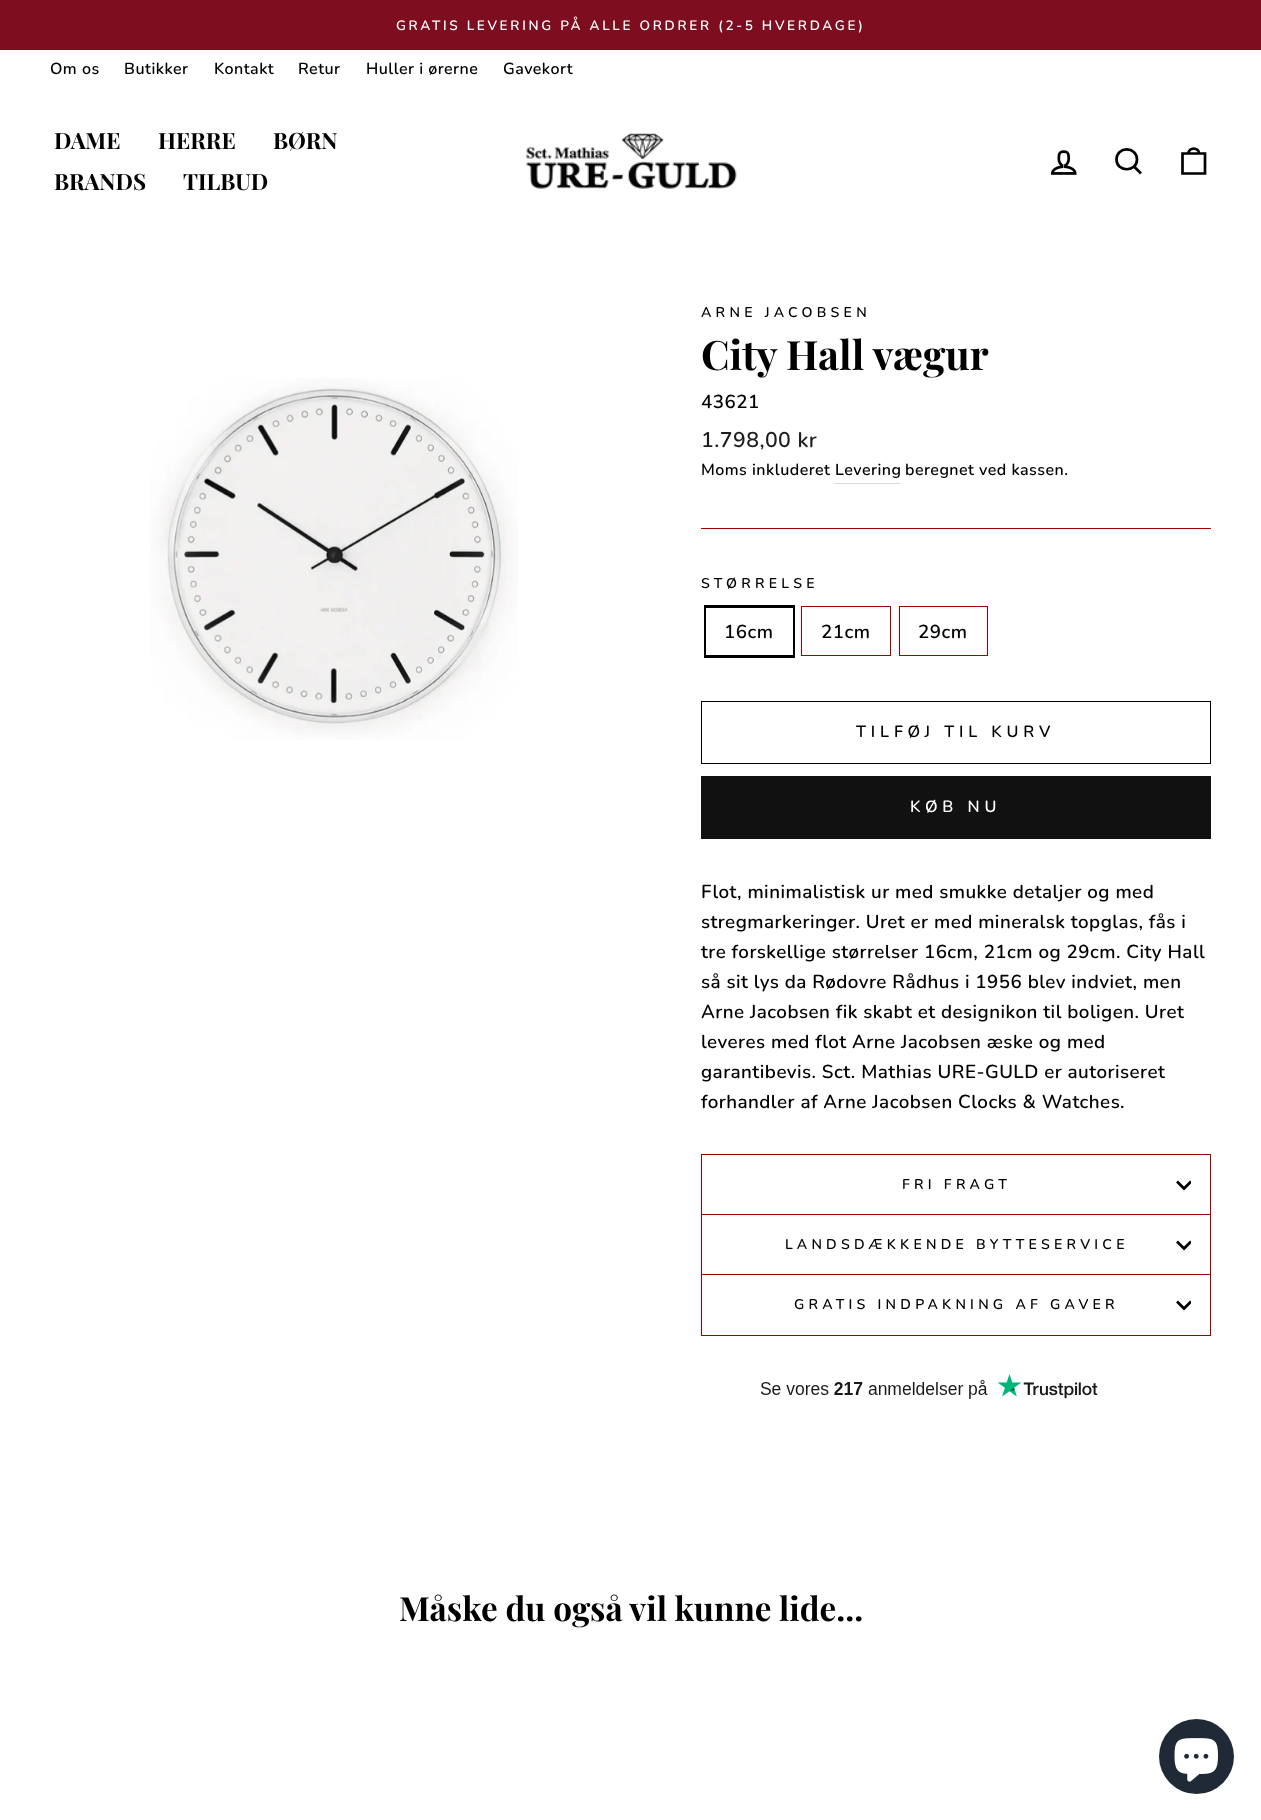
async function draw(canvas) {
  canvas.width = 1261
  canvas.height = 1820
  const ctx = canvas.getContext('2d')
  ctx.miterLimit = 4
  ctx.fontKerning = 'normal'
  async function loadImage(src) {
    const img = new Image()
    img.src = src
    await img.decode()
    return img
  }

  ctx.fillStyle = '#fff'
  ctx.fillRect(0, 0, 1261, 1820)
  ctx.fillStyle = '#7e0d20'
  ctx.fillRect(0, 0, 1261, 50)
  ctx.letterSpacing = '2.7px'
  ctx.font = '600 13.55px Nunito'
  ctx.fillStyle = '#fff'
  ctx.fillText('GRATIS LEVERING PÅ ALLE ORDRER (2-5 HVERDAGE)', 396, 30)
  ctx.letterSpacing = '0.47px'
  ctx.font = '600 16px Nunito'
  ctx.fillStyle = '#000'
  ctx.fillText('Om os', 50, 74)
  ctx.fillText('Butikker', 124, 74)
  ctx.fillText('Kontakt', 214, 74)
  ctx.fillText('Retur', 298, 74)
  ctx.fillText('Huller i ørerne', 366, 74)
  ctx.fillText('Gavekort', 503, 74)
  ctx.fillStyle = '#00000033'
  ctx.filter = 'blur(0.5px)'
  ctx.beginPath()
  ctx.rect(0, 89, 1261, 145)
  ctx.fill()
  ctx.filter = 'none'
  ctx.fillStyle = '#fff'
  ctx.fillRect(0, 89, 1261, 145)
  ctx.letterSpacing = '0px'
  ctx.font = 'bold 22.5px Playfair Display'
  ctx.fillStyle = '#000'
  ctx.fillText('DAME', 54, 149)
  ctx.fillText('HERRE', 158, 149)
  ctx.fillText('BØRN', 273, 149)
  ctx.fillText('BRANDS', 54, 190)
  ctx.fillText('TILBUD', 183, 190)
  ctx.drawImage(await loadImage('image0.png'), 526, 133, 211, 56)
  ctx.drawImage(await loadImage('image1.png'), 1050, 150, 27, 25)
  ctx.beginPath()
  ctx.moveTo(1137, 159.5)
  ctx.bezierCurveTo(1137, 172.5, 1116.5, 172.5, 1116.5, 159.5)
  ctx.bezierCurveTo(1116.5, 146, 1137, 146, 1137, 159.5)
  ctx.closePath()
  ctx.moveTo(1141, 173.5)
  ctx.lineTo(1134, 166.5)
  ctx.strokeStyle = '#000'
  ctx.lineWidth = 2.7
  ctx.stroke()
  ctx.beginPath()
  ctx.moveTo(1182.5, 153.5)
  ctx.lineTo(1205, 153.5)
  ctx.lineTo(1205, 173.5)
  ctx.lineTo(1182.5, 173.5)
  ctx.closePath()
  ctx.moveTo(1188.5, 153.5)
  ctx.bezierCurveTo(1188.5, 147, 1199, 147, 1199, 153.5)
  ctx.stroke()
  ctx.drawImage(await loadImage('image2.png'), 150, 378, 368, 362)
  ctx.letterSpacing = '4.25px'
  ctx.font = '600 14.1px Nunito'
  ctx.fillText('ARNE JACOBSEN', 701, 317)
  ctx.letterSpacing = '0px'
  ctx.font = 'bold 40.5px Playfair Display'
  ctx.fillText('City Hall vægur', 701, 370)
  ctx.letterSpacing = '0.47px'
  ctx.font = '600 18.75px Nunito'
  ctx.fillText('43621', 701, 408)
  ctx.font = '600 21.25px Nunito'
  ctx.fillStyle = '#1c1d1d'
  ctx.fillText('1.798,00 kr', 701, 447)
  ctx.font = '600 16px Nunito'
  ctx.fillStyle = '#000'
  ctx.fillText('Moms inkluderet Levering', 701, 475)
  ctx.fillText('beregnet ved kassen.', 905, 475)
  ctx.fillStyle = '#d9d9d9'
  ctx.fillRect(834, 483, 66, 1)
  ctx.fillStyle = '#a50000'
  ctx.fillRect(701, 528, 510, 1)
  ctx.letterSpacing = '4.25px'
  ctx.font = '600 14.1px Nunito'
  ctx.fillStyle = '#000'
  ctx.fillText('STØRRELSE', 701, 588)
  ctx.lineWidth = 3
  ctx.strokeRect(705.5, 606.5, 88, 50)
  ctx.fillStyle = '#fff'
  ctx.fillRect(706, 608, 87, 47)
  ctx.letterSpacing = '0.47px'
  ctx.font = '600 18.75px Nunito'
  ctx.fillStyle = '#000'
  ctx.fillText('16cm', 724, 638)
  ctx.strokeStyle = '#a50000'
  ctx.lineWidth = 1
  ctx.strokeRect(801.5, 606.5, 89, 49)
  ctx.fillText('21cm', 821, 638)
  ctx.strokeRect(899.5, 606.5, 88, 49)
  ctx.fillText('29cm', 918, 638)
  ctx.strokeStyle = '#000'
  ctx.strokeRect(701.5, 701.5, 509, 62)
  ctx.letterSpacing = '4.9px'
  ctx.font = '600 16.25px Nunito'
  ctx.fillText('TILFØJ TIL KURV', 856, 737)
  ctx.fillStyle = '#111'
  ctx.fillRect(701, 776, 510, 63)
  ctx.fillStyle = '#fff'
  ctx.fillText('KØB NU', 910, 812)
  ctx.letterSpacing = '0.47px'
  ctx.font = '600 18.75px Nunito'
  ctx.fillStyle = '#000'
  ctx.fillText('Flot, minimalistisk ur med smukke detaljer og med', 701, 898)
  ctx.fillText('stregmarkeringer. Uret er med mineralsk topglas, fås i', 701, 928)
  ctx.fillText('tre forskellige størrelser 16cm, 21cm og 29cm. City Hall', 701, 958)
  ctx.fillText('så sit lys da Rødovre Rådhus i 1956 blev indviet, men', 701, 988)
  ctx.fillText('Arne Jacobsen fik skabt et designikon til boligen. Uret', 701, 1018)
  ctx.fillText('leveres med flot Arne Jacobsen æske og med', 701, 1048)
  ctx.fillText('garantibevis. Sct. Mathias URE-GULD er autoriseret', 701, 1078)
  ctx.fillText('forhandler af Arne Jacobsen Clocks & Watches.', 701, 1108)
  ctx.fillStyle = '#a50000'
  ctx.fillRect(701, 1335, 510, 1)
  ctx.fillRect(701, 1154, 510, 1)
  ctx.fillRect(1210, 1154, 1, 61)
  ctx.fillRect(701, 1154, 1, 61)
  ctx.letterSpacing = '4.25px'
  ctx.font = '600 14.1px Nunito'
  ctx.fillStyle = '#000'
  ctx.fillText('FRI FRAGT', 902, 1189)
  ctx.save()
  ctx.beginPath()
  ctx.rect(1176, 1178, 15, 15)
  ctx.clip()
  ctx.beginPath()
  ctx.moveTo(1177, 1181.5)
  ctx.lineTo(1184, 1188.5)
  ctx.lineTo(1191, 1181.5)
  ctx.lineWidth = 2.7
  ctx.stroke()
  ctx.restore()
  ctx.fillStyle = '#a50000'
  ctx.fillRect(701, 1214, 510, 1)
  ctx.fillRect(1210, 1214, 1, 61)
  ctx.fillRect(701, 1214, 1, 61)
  ctx.fillStyle = '#000'
  ctx.fillText('LANDSDÆKKENDE BYTTESERVICE', 785, 1249)
  ctx.save()
  ctx.beginPath()
  ctx.rect(1176, 1238, 15, 15)
  ctx.clip()
  ctx.beginPath()
  ctx.moveTo(1177, 1241.5)
  ctx.lineTo(1184, 1248.5)
  ctx.lineTo(1191, 1241.5)
  ctx.lineWidth = 2.7
  ctx.stroke()
  ctx.restore()
  ctx.fillStyle = '#a50000'
  ctx.fillRect(701, 1274, 510, 1)
  ctx.fillRect(1210, 1274, 1, 61)
  ctx.fillRect(701, 1274, 1, 61)
  ctx.fillStyle = '#000'
  ctx.fillText('GRATIS INDPAKNING AF GAVER', 794, 1309)
  ctx.save()
  ctx.beginPath()
  ctx.rect(1176, 1298, 15, 15)
  ctx.clip()
  ctx.beginPath()
  ctx.moveTo(1177, 1301.5)
  ctx.lineTo(1184, 1308.5)
  ctx.lineTo(1191, 1301.5)
  ctx.lineWidth = 2.7
  ctx.stroke()
  ctx.restore()
  ctx.drawImage(await loadImage('image3.png'), 760, 1374, 338, 25)
  ctx.letterSpacing = '0px'
  ctx.font = 'bold 33.25px Playfair Display'
  ctx.fillText('Måske du også vil kunne lide...', 399, 1621)
  ctx.fillStyle = '#202a36'
  ctx.beginPath()
  ctx.arc(1196.5, 1756.5, 37.5, 0, 2 * Math.PI)
  ctx.fill()
  ctx.drawImage(await loadImage('image4.png'), 1174, 1738, 44, 44)
}

draw(document.querySelector('canvas'))
